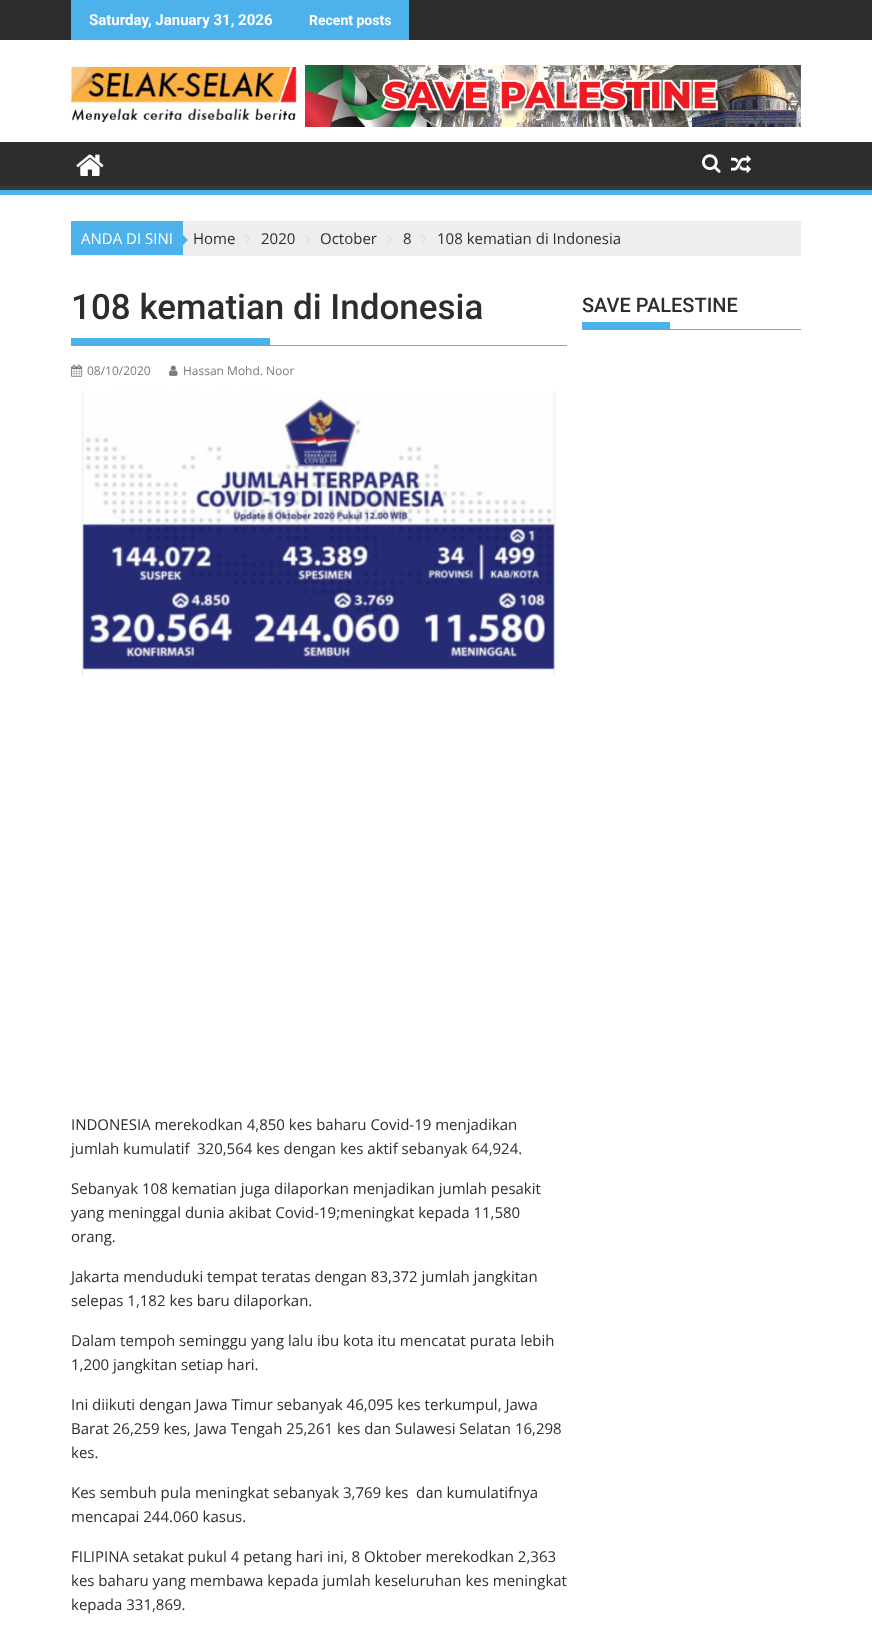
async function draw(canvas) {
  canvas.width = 872
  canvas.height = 1630
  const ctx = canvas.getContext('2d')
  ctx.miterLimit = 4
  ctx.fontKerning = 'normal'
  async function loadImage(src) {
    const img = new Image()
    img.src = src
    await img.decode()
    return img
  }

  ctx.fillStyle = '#fff'
  ctx.fillRect(0, 0, 872, 1630)
  ctx.fillStyle = '#2d2d2d'
  ctx.fillRect(0, 0, 872, 40)
  ctx.fillStyle = '#4db2ec'
  ctx.fillRect(71, 0, 338, 40)
  ctx.font = 'bold 15px Roboto'
  ctx.fillStyle = '#fff'
  ctx.fillText('Saturday, January 31, 2026', 89, 25)
  ctx.font = 'bold 14px Roboto'
  ctx.fillText('Recent posts', 309, 25)
  ctx.drawImage(await loadImage('image0.png'), 71, 67, 226, 55)
  ctx.drawImage(await loadImage('image1.png'), 305, 65, 496, 62)
  ctx.fillStyle = '#2d2d2d'
  ctx.fillRect(0, 142, 872, 44)
  ctx.save()
  ctx.beginPath()
  ctx.rect(0, 142, 872, 48)
  ctx.clip()
  ctx.fillStyle = '#393939'
  ctx.beginPath()
  ctx.moveTo(-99, 43)
  ctx.lineTo(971, 43)
  ctx.lineTo(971, 289)
  ctx.lineTo(-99, 289)
  ctx.closePath()
  ctx.moveTo(-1, 136)
  ctx.lineTo(871, 136)
  ctx.bezierCurveTo(872, 136, 872, 136, 872, 137)
  ctx.lineTo(872, 185)
  ctx.bezierCurveTo(872, 186, 872, 186, 871, 186)
  ctx.lineTo(-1, 186)
  ctx.bezierCurveTo(-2, 186, -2, 186, -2, 185)
  ctx.lineTo(-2, 137)
  ctx.bezierCurveTo(-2, 136, -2, 136, -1, 136)
  ctx.closePath()
  ctx.fill('evenodd')
  ctx.restore()
  ctx.fillStyle = '#4db2ec'
  ctx.fillRect(0, 190, 872, 5)
  ctx.drawImage(await loadImage('image2.png'), 76, 154, 28, 22)
  ctx.drawImage(await loadImage('image3.png'), 702, 154, 19, 19)
  ctx.drawImage(await loadImage('image4.png'), 731, 155, 20, 18)
  ctx.fillStyle = '#eeeeef'
  ctx.fillRect(71, 221, 730, 35)
  ctx.fillStyle = '#4db2ec'
  ctx.fillRect(71, 221, 112, 34)
  ctx.font = '15px Open Sans'
  ctx.fillStyle = '#fff'
  ctx.fillText('ANDA DI SINI', 81, 244)
  ctx.fillStyle = '#4db2ec'
  ctx.beginPath()
  ctx.moveTo(183, 245)
  ctx.lineTo(183, 235)
  ctx.lineTo(188, 240)
  ctx.closePath()
  ctx.fill()
  ctx.fillStyle = '#2d2d2d'
  ctx.fillText('Home', 193, 244)
  ctx.drawImage(await loadImage('image5.png'), 245, 235, 5, 8)
  ctx.fillText('2020', 261, 244)
  ctx.drawImage(await loadImage('image5.png'), 305, 235, 5, 8)
  ctx.fillText('October', 320, 244)
  ctx.drawImage(await loadImage('image5.png'), 387, 235, 5, 8)
  ctx.fillText('8', 403, 244)
  ctx.drawImage(await loadImage('image5.png'), 421, 235, 5, 8)
  ctx.fillText('108 kematian di Indonesia', 437, 244)
  ctx.fillStyle = '#4db2ec'
  ctx.fillRect(71, 345, 496, 1)
  ctx.font = '500 35px Roboto'
  ctx.fillStyle = '#2d2d2d'
  ctx.fillText('108 kematian di Indonesia', 71, 319)
  ctx.fillStyle = '#4db2ec'
  ctx.fillRect(71, 338, 199, 7)
  ctx.drawImage(await loadImage('image6.png'), 71, 364, 12, 13)
  ctx.font = '12px Open Sans'
  ctx.fillStyle = '#7a7a7a'
  ctx.fillText('08/10/2020', 87, 375)
  ctx.drawImage(await loadImage('image7.png'), 169, 365, 9, 11)
  ctx.fillText('Hassan Mohd. Noor', 183, 375)
  ctx.drawImage(await loadImage('image8.png'), 80, 391, 476, 285)
  ctx.font = '15px Open Sans'
  ctx.fillStyle = '#2d2d2d'
  ctx.fillText('INDONESIA merekodkan 4,850 kes baharu Covid-19 menjadikan', 71, 1130)
  ctx.fillText('jumlah kumulatif', 71, 1154)
  ctx.fillText('320,564 kes dengan kes aktif sebanyak 64,924.', 197, 1154)
  ctx.fillText('Sebanyak 108 kematian juga dilaporkan menjadikan jumlah pesakit', 71, 1194)
  ctx.fillText('yang meninggal dunia akibat Covid-19;meningkat kepada 11,580', 71, 1218)
  ctx.fillText('orang.', 71, 1242)
  ctx.fillText('Jakarta menduduki tempat teratas dengan 83,372 jumlah jangkitan', 71, 1282)
  ctx.fillText('selepas 1,182 kes baru dilaporkan.', 71, 1306)
  ctx.fillText('Dalam tempoh seminggu yang lalu ibu kota itu mencatat purata lebih', 71, 1346)
  ctx.fillText('1,200 jangkitan setiap hari.', 71, 1370)
  ctx.fillText('Ini diikuti dengan Jawa Timur sebanyak 46,095 kes terkumpul, Jawa', 71, 1410)
  ctx.fillText('Barat 26,259 kes, Jawa Tengah 25,261 kes dan Sulawesi Selatan 16,298', 71, 1434)
  ctx.fillText('kes.', 71, 1458)
  ctx.fillText('Kes sembuh pula meningkat sebanyak 3,769 kes', 71, 1498)
  ctx.fillText('dan kumulatifnya', 416, 1498)
  ctx.fillText('mencapai 244.060 kasus.', 71, 1522)
  ctx.fillText('FILIPINA setakat pukul 4 petang hari ini, 8 Oktober merekodkan 2,363', 71, 1562)
  ctx.fillText('kes baharu yang membawa kepada jumlah keseluruhan kes meningkat', 71, 1586)
  ctx.fillText('kepada 331,869.', 71, 1610)
  ctx.fillStyle = '#4db2ec'
  ctx.fillRect(582, 329, 219, 1)
  ctx.font = '500 20px Roboto'
  ctx.fillStyle = '#2d2d2d'
  ctx.fillText('SAVE PALESTINE', 582, 312)
  ctx.fillStyle = '#4db2ec'
  ctx.fillRect(582, 322, 88, 7)
}

draw(document.querySelector('canvas'))
